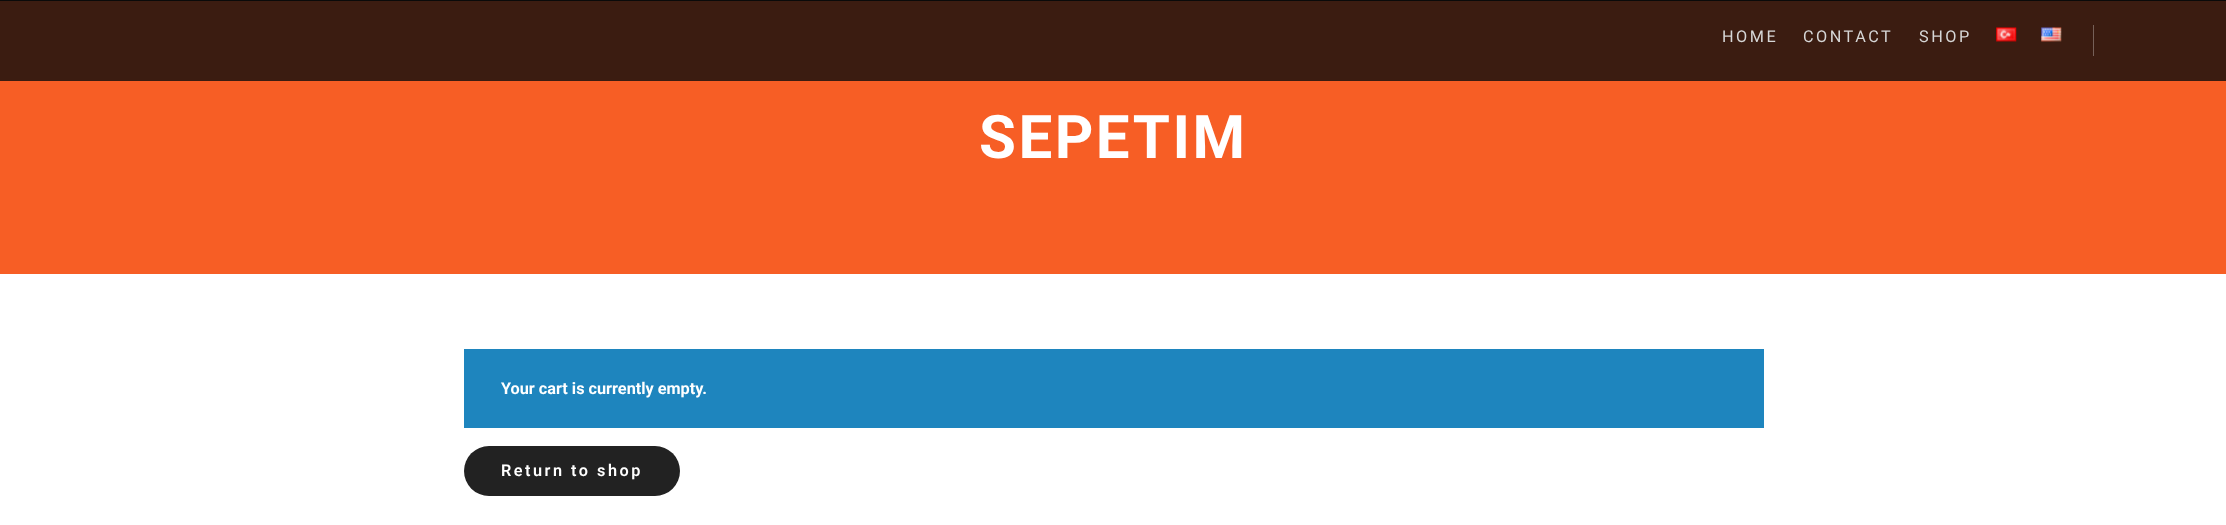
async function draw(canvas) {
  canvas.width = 2226
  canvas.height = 525
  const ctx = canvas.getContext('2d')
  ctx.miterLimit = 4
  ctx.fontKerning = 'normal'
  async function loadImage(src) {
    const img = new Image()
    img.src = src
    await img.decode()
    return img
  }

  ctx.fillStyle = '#0a0a0a'
  ctx.fillRect(0, 0, 2226, 525)
  ctx.fillStyle = '#3b1c11'
  ctx.fillRect(0, 1, 2226, 80)
  ctx.letterSpacing = '2.5px'
  ctx.font = '16.25px Roboto'
  ctx.fillStyle = '#d6d6d6'
  ctx.fillText('HOME', 1722, 42)
  ctx.fillText('CONTACT', 1803, 42)
  ctx.fillText('SHOP', 1919, 42)
  ctx.drawImage(await loadImage('image0.png'), 1996, 27, 21, 15)
  ctx.drawImage(await loadImage('image1.png'), 2041, 27, 21, 15)
  ctx.fillStyle = '#766058'
  ctx.fillRect(2093, 25, 1, 31)
  ctx.fillStyle = '#f75e25'
  ctx.fillRect(0, 81, 2226, 193)
  ctx.font = 'bold 60px Roboto'
  ctx.fillStyle = '#fff'
  ctx.fillText('SEPETIM', 979, 158)
  ctx.fillRect(0, 274, 2226, 251)
  ctx.fillStyle = '#1e85be'
  ctx.fillRect(464, 349, 1300, 79)
  ctx.letterSpacing = '0px'
  ctx.font = 'bold 16.25px Roboto'
  ctx.fillStyle = '#fff'
  ctx.fillText('Your cart is currently empty.', 501, 394)
  ctx.fillStyle = '#222'
  ctx.beginPath()
  ctx.roundRect(464, 446, 216, 50, 25)
  ctx.fill()
  ctx.letterSpacing = '2.5px'
  ctx.font = '600 16.25px Roboto'
  ctx.fillStyle = '#fff'
  ctx.fillText('Return to shop', 501, 476)
}

draw(document.querySelector('canvas'))
